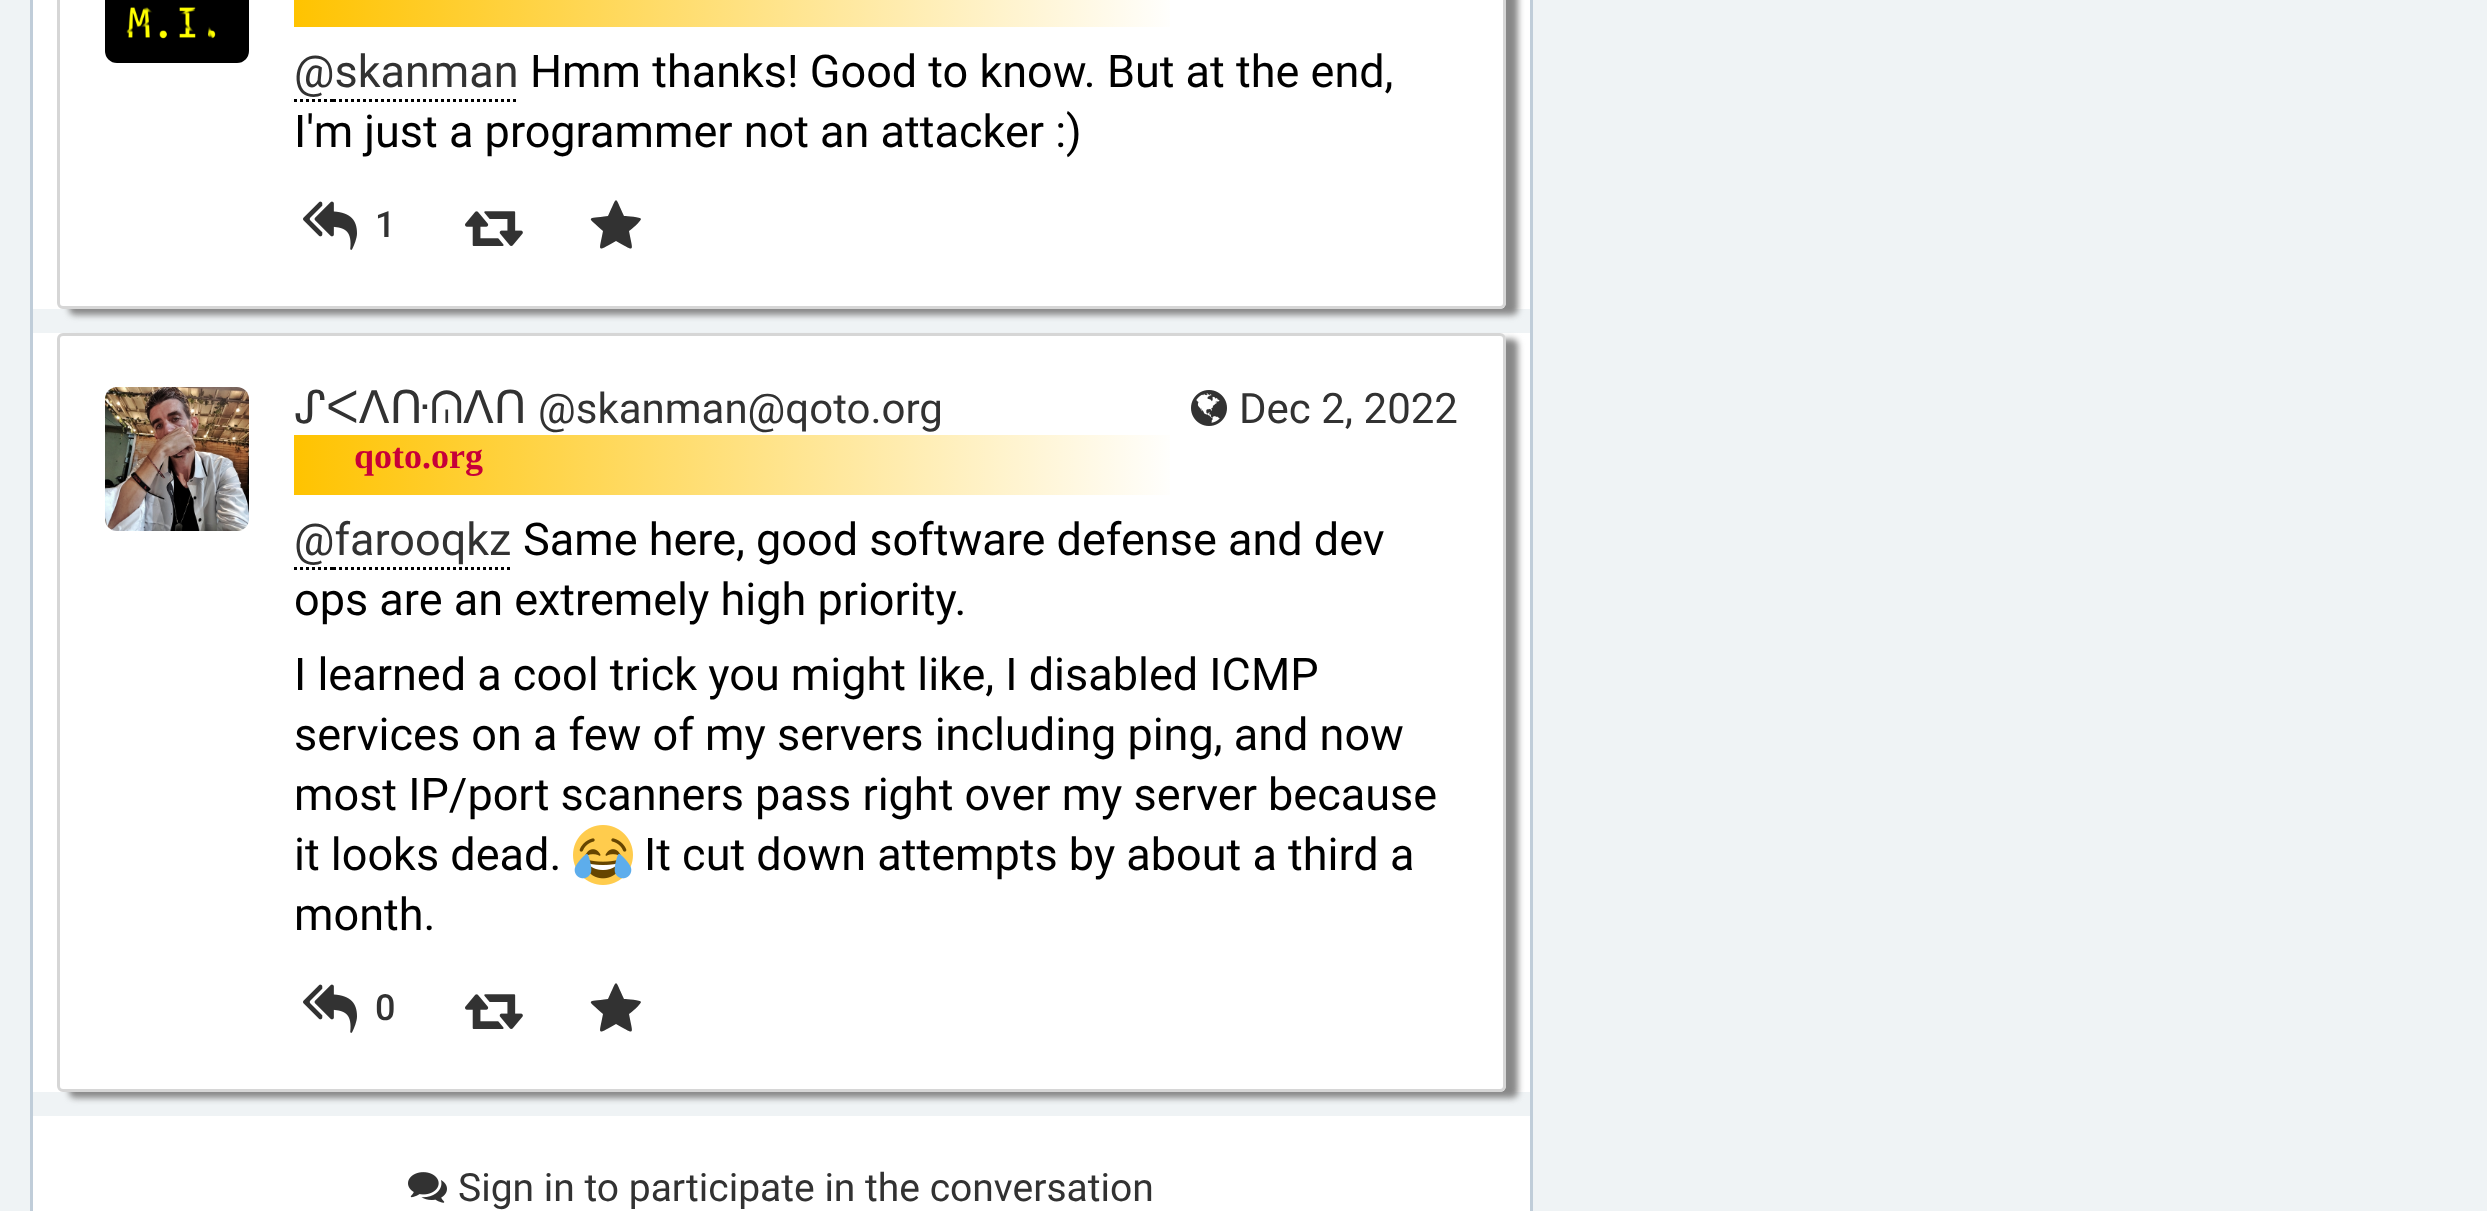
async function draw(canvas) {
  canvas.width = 2487
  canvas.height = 1211
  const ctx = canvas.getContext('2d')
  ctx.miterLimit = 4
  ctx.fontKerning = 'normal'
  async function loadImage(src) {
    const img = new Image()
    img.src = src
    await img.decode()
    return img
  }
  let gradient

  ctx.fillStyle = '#eff3f5'
  ctx.fillRect(0, 0, 2487, 1211)
  ctx.strokeStyle = '#c0cdd9'
  ctx.lineWidth = 3
  ctx.strokeRect(31.5, -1.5, 1500, 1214)
  ctx.fillStyle = '#fff'
  ctx.fillRect(33, 0, 1497, 309)
  ctx.fillStyle = '#888'
  ctx.filter = 'blur(3px)'
  ctx.beginPath()
  ctx.roundRect(69, -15, 1449, 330, 6)
  ctx.fill()
  ctx.filter = 'none'
  ctx.fillStyle = '#fff'
  ctx.beginPath()
  ctx.roundRect(57, -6, 1449, 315, 6)
  ctx.fill()
  ctx.beginPath()
  ctx.roundRect(58.5, -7.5, 1446, 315, 4.5)
  ctx.strokeStyle = '#cccccccc'
  ctx.stroke()
  ctx.drawImage(await loadImage('image0.png'), 105, 0, 144, 63)
  gradient = ctx.createLinearGradient(294, -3, 1179, -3)
  gradient.addColorStop(0, '#ffc300')
  gradient.addColorStop(1, '#fff')
  ctx.fillStyle = gradient
  ctx.fillRect(294, 0, 876, 27)
  ctx.font = '45px Roboto'
  ctx.fillStyle = '#323232'
  ctx.fillText('@skanman', 294, 87)
  ctx.beginPath()
  ctx.moveTo(294, 100.5)
  ctx.lineTo(333, 100.5)
  ctx.strokeStyle = '#000'
  ctx.setLineDash([3, 3])
  ctx.stroke()
  ctx.beginPath()
  ctx.moveTo(333, 100.5)
  ctx.lineTo(519, 100.5)
  ctx.stroke()
  ctx.fillStyle = '#000'
  ctx.fillText('Hmm thanks! Good to know. But at the end,', 530, 87)
  ctx.fillText('I\'m just a programmer not an attacker :)', 294, 147)
  ctx.drawImage(await loadImage('image1.png'), 303, 201, 54, 49)
  ctx.font = '500 36px Roboto'
  ctx.fillStyle = '#323232'
  ctx.fillText('1', 375, 237)
  ctx.drawImage(await loadImage('image2.png'), 465, 211, 58, 35)
  ctx.beginPath()
  ctx.moveTo(641, 219)
  ctx.bezierCurveTo(641, 221, 631, 230, 629, 231)
  ctx.bezierCurveTo(633, 253, 636, 252, 616, 241)
  ctx.bezierCurveTo(596, 252, 599, 253, 603, 231)
  ctx.bezierCurveTo(587, 216, 585, 219, 608, 216)
  ctx.bezierCurveTo(618, 195, 614, 195, 624, 216)
  ctx.bezierCurveTo(627, 216, 641, 217, 641, 219)
  ctx.closePath()
  ctx.fill()
  ctx.fillStyle = '#fff'
  ctx.fillRect(33, 333, 1497, 759)
  ctx.fillStyle = '#888'
  ctx.filter = 'blur(3px)'
  ctx.beginPath()
  ctx.roundRect(69, 339, 1449, 759, 6)
  ctx.fill()
  ctx.filter = 'none'
  ctx.fillStyle = '#fff'
  ctx.beginPath()
  ctx.roundRect(57, 333, 1449, 759, 6)
  ctx.fill()
  ctx.beginPath()
  ctx.roundRect(58.5, 334.5, 1446, 756, 4.5)
  ctx.strokeStyle = '#cccccccc'
  ctx.setLineDash([])
  ctx.stroke()
  ctx.drawImage(await loadImage('image3.png'), 105, 387, 144, 144)
  ctx.font = '45px DejaVu Sans'
  ctx.fillStyle = '#323232'
  ctx.fillText('ᔑᐸᐱᑚ', 294, 423)
  ctx.font = '45px FreeSans'
  ctx.fillText('ᕬ', 430, 423)
  ctx.font = '45px DejaVu Sans'
  ctx.fillText('ᐱᑎ', 463, 423)
  ctx.font = '42px Roboto'
  ctx.fillText('@skanman@qoto.org', 538, 423)
  gradient = ctx.createLinearGradient(294, 465, 1179, 465)
  gradient.addColorStop(0, '#ffc300')
  gradient.addColorStop(1, '#fff')
  ctx.fillStyle = gradient
  ctx.fillRect(294, 435, 876, 60)
  ctx.font = 'bold 36px Liberation Serif'
  ctx.fillStyle = '#c70039'
  ctx.fillText('qoto.org', 354, 468)
  ctx.drawImage(await loadImage('image4.png'), 1191, 390, 36, 36)
  ctx.font = '42px Roboto'
  ctx.fillStyle = '#323232'
  ctx.fillText('Dec 2, 2022', 1239, 423)
  ctx.font = '45px Roboto'
  ctx.fillText('@farooqkz', 294, 555)
  ctx.beginPath()
  ctx.moveTo(294, 568.5)
  ctx.lineTo(333, 568.5)
  ctx.strokeStyle = '#000'
  ctx.setLineDash([3, 3])
  ctx.stroke()
  ctx.beginPath()
  ctx.moveTo(333, 568.5)
  ctx.lineTo(510, 568.5)
  ctx.stroke()
  ctx.fillStyle = '#000'
  ctx.fillText('Same here, good software defense and dev', 523, 555)
  ctx.fillText('ops are an extremely high priority.', 294, 615)
  ctx.fillText('I learned a cool trick you might like, I disabled ICMP', 294, 690)
  ctx.fillText('services on a few of my servers including ping, and now', 294, 750)
  ctx.fillText('most IP/port scanners pass right over my server because', 294, 810)
  ctx.fillText('it looks dead.', 294, 870)
  ctx.drawImage(await loadImage('image5.png'), 573, 825, 60, 60)
  ctx.fillText('It cut down attempts by about a third a', 644, 870)
  ctx.fillText('month.', 294, 930)
  ctx.drawImage(await loadImage('image1.png'), 303, 984, 54, 49)
  ctx.font = '500 36px Roboto'
  ctx.fillStyle = '#323232'
  ctx.fillText('0', 375, 1020)
  ctx.drawImage(await loadImage('image2.png'), 465, 994, 58, 35)
  ctx.beginPath()
  ctx.moveTo(641, 1002)
  ctx.bezierCurveTo(641, 1004, 631, 1013, 629, 1014)
  ctx.bezierCurveTo(633, 1036, 636, 1035, 616, 1024)
  ctx.bezierCurveTo(596, 1035, 599, 1036, 603, 1014)
  ctx.bezierCurveTo(587, 999, 585, 1002, 608, 999)
  ctx.bezierCurveTo(618, 978, 614, 978, 624, 999)
  ctx.bezierCurveTo(627, 999, 641, 1000, 641, 1002)
  ctx.closePath()
  ctx.fill()
  ctx.fillStyle = '#fff'
  ctx.fillRect(33, 1116, 1497, 95)
  ctx.drawImage(await loadImage('image6.png'), 408, 1172, 39, 31)
  ctx.font = '39px Roboto'
  ctx.fillStyle = '#323232'
  ctx.fillText('Sign in to participate in the conversation', 458, 1201)
}

draw(document.querySelector('canvas'))
